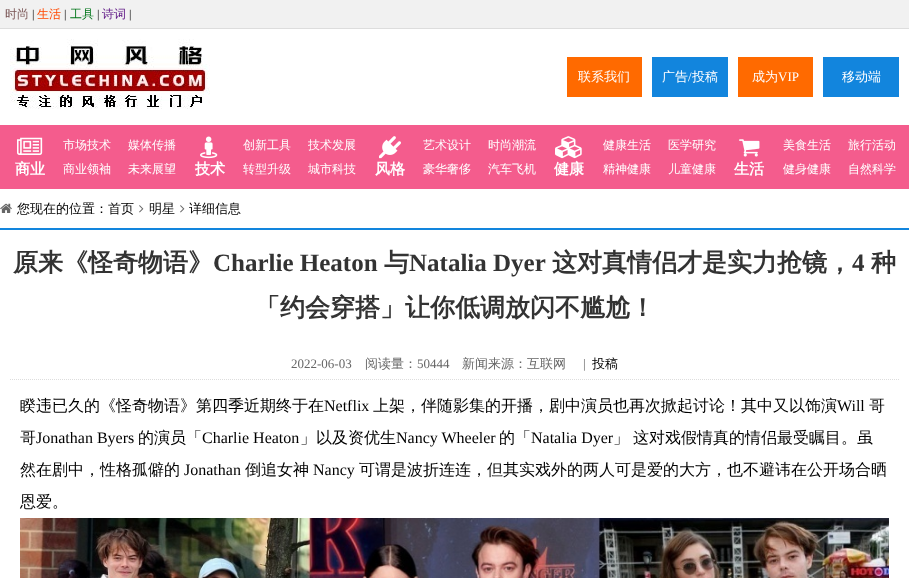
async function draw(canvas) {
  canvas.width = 909
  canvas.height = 578
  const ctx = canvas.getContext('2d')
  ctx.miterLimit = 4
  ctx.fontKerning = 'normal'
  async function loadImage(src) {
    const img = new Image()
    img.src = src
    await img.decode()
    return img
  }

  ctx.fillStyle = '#fff'
  ctx.fillRect(0, 0, 909, 578)
  ctx.fillStyle = '#f1f1f1'
  ctx.fillRect(0, 0, 909, 28)
  ctx.fillStyle = '#ddd'
  ctx.fillRect(0, 28, 909, 1)
  ctx.font = '500 12px WenQuanYi Zen Hei'
  ctx.fillStyle = '#7a5555'
  ctx.fillText('时尚', 5, 18)
  ctx.font = '12px Liberation Serif'
  ctx.fillStyle = '#000'
  ctx.fillText('|', 32, 18)
  ctx.font = '500 12px WenQuanYi Zen Hei'
  ctx.fillStyle = '#ff4800'
  ctx.fillText('生活', 37, 18)
  ctx.font = '12px Liberation Serif'
  ctx.fillStyle = '#000'
  ctx.fillText('|', 64, 18)
  ctx.font = '500 12px WenQuanYi Zen Hei'
  ctx.fillStyle = '#017619'
  ctx.fillText('工具', 70, 18)
  ctx.font = '12px Liberation Serif'
  ctx.fillStyle = '#000'
  ctx.fillText('|', 97, 18)
  ctx.font = '500 12px WenQuanYi Zen Hei'
  ctx.fillStyle = '#601986'
  ctx.fillText('诗词', 102, 18)
  ctx.font = '12px Liberation Serif'
  ctx.fillStyle = '#000'
  ctx.fillText('|', 129, 18)
  ctx.drawImage(await loadImage('image0.png'), 10, 39, 200, 70)
  ctx.fillStyle = '#ff6a00'
  ctx.fillRect(567, 57, 75, 40)
  ctx.font = '500 13px WenQuanYi Zen Hei'
  ctx.fillStyle = '#fff'
  ctx.fillText('联系我们', 578, 81)
  ctx.fillStyle = '#1285dd'
  ctx.fillRect(652, 57, 76, 40)
  ctx.fillStyle = '#fff'
  ctx.fillText('广告', 662, 81)
  ctx.font = '13px Liberation Serif'
  ctx.fillText('/', 688, 81)
  ctx.font = '500 13px WenQuanYi Zen Hei'
  ctx.fillText('投稿', 692, 81)
  ctx.fillStyle = '#ff6a00'
  ctx.fillRect(738, 57, 75, 40)
  ctx.fillStyle = '#fff'
  ctx.fillText('成为', 752, 81)
  ctx.font = '13px Liberation Serif'
  ctx.fillText('VIP', 778, 81)
  ctx.fillStyle = '#1285dd'
  ctx.fillRect(823, 57, 76, 40)
  ctx.font = '500 13px WenQuanYi Zen Hei'
  ctx.fillStyle = '#fff'
  ctx.fillText('移动端', 842, 81)
  ctx.fillStyle = '#f45c8d'
  ctx.fillRect(0, 125, 909, 64)
  ctx.font = '500 12px WenQuanYi Zen Hei'
  ctx.fillStyle = '#fff'
  ctx.fillText('市场技术', 63, 149)
  ctx.fillText('媒体传播', 128, 149)
  ctx.drawImage(await loadImage('image1.png'), 17, 137, 26, 18)
  ctx.font = 'bold 15px WenQuanYi Zen Hei'
  ctx.fillText('商业', 15, 174)
  ctx.font = '500 12px WenQuanYi Zen Hei'
  ctx.fillText('商业领袖', 63, 173)
  ctx.fillText('未来展望', 128, 173)
  ctx.fillText('创新工具', 243, 149)
  ctx.fillText('技术发展', 308, 149)
  ctx.drawImage(await loadImage('image2.png'), 200, 136, 18, 23)
  ctx.font = 'bold 15px WenQuanYi Zen Hei'
  ctx.fillText('技术', 195, 174)
  ctx.font = '500 12px WenQuanYi Zen Hei'
  ctx.fillText('转型升级', 243, 173)
  ctx.fillText('城市科技', 308, 173)
  ctx.fillText('艺术设计', 423, 149)
  ctx.fillText('时尚潮流', 488, 149)
  ctx.drawImage(await loadImage('image3.png'), 379, 136, 22, 23)
  ctx.font = 'bold 15px WenQuanYi Zen Hei'
  ctx.fillText('风格', 375, 174)
  ctx.font = '500 12px WenQuanYi Zen Hei'
  ctx.fillText('豪华奢侈', 423, 173)
  ctx.fillText('汽车飞机', 488, 173)
  ctx.fillText('健康生活', 603, 149)
  ctx.fillText('医学研究', 668, 149)
  ctx.drawImage(await loadImage('image4.png'), 555, 136, 27, 23)
  ctx.font = 'bold 15px WenQuanYi Zen Hei'
  ctx.fillText('健康', 554, 174)
  ctx.font = '500 12px WenQuanYi Zen Hei'
  ctx.fillText('精神健康', 603, 173)
  ctx.fillText('儿童健康', 668, 173)
  ctx.fillText('美食生活', 783, 149)
  ctx.fillText('旅行活动', 848, 149)
  ctx.drawImage(await loadImage('image5.png'), 739, 139, 21, 18)
  ctx.font = 'bold 15px WenQuanYi Zen Hei'
  ctx.fillText('生活', 734, 174)
  ctx.font = '500 12px WenQuanYi Zen Hei'
  ctx.fillText('健身健康', 783, 173)
  ctx.fillText('自然科学', 848, 173)
  ctx.fillStyle = '#1285dd'
  ctx.fillRect(0, 228, 909, 2)
  ctx.drawImage(await loadImage('image6.png'), 0, 203, 12, 10)
  ctx.font = '500 13px WenQuanYi Zen Hei'
  ctx.fillStyle = '#000'
  ctx.fillText('您现在的位置：首页', 17, 213)
  ctx.drawImage(await loadImage('image7.png'), 139, 205, 5, 8)
  ctx.fillText('明星', 149, 213)
  ctx.drawImage(await loadImage('image7.png'), 180, 205, 5, 8)
  ctx.fillText('详细信息', 189, 213)
  ctx.font = 'bold 25px WenQuanYi Zen Hei'
  ctx.fillStyle = '#333'
  ctx.fillText('原来《怪奇物语》', 13, 271)
  ctx.font = 'bold 25px Liberation Serif'
  ctx.fillText('Charlie Heaton', 213, 271)
  ctx.font = 'bold 25px WenQuanYi Zen Hei'
  ctx.fillText('与', 384, 271)
  ctx.font = 'bold 25px Liberation Serif'
  ctx.fillText('Natalia Dyer', 409, 271)
  ctx.font = 'bold 25px WenQuanYi Zen Hei'
  ctx.fillText('这对真情侣才是实力抢镜，', 552, 271)
  ctx.font = 'bold 25px Liberation Serif'
  ctx.fillText('4', 852, 271)
  ctx.font = 'bold 25px WenQuanYi Zen Hei'
  ctx.fillText('种', 871, 271)
  ctx.fillText('「约会穿搭」让你低调放闪不尴尬！', 255, 316)
  ctx.beginPath()
  ctx.moveTo(10, 379.5)
  ctx.lineTo(899, 379.5)
  ctx.strokeStyle = '#ddd'
  ctx.setLineDash([1, 1])
  ctx.stroke()
  ctx.font = '13px Liberation Serif'
  ctx.fillStyle = '#666'
  ctx.fillText('2022-06-03', 291, 368)
  ctx.font = '500 13px WenQuanYi Zen Hei'
  ctx.fillText('阅读量：', 365, 368)
  ctx.font = '13px Liberation Serif'
  ctx.fillText('50444', 417, 368)
  ctx.font = '500 13px WenQuanYi Zen Hei'
  ctx.fillText('新闻来源：互联网', 462, 368)
  ctx.font = '13px Liberation Serif'
  ctx.fillText('|', 583, 368)
  ctx.font = '500 13px WenQuanYi Zen Hei'
  ctx.fillStyle = '#000'
  ctx.fillText('投稿', 592, 368)
  ctx.font = '500 16px WenQuanYi Zen Hei'
  ctx.fillText('睽违已久的《怪奇物语》第四季近期终于在', 20, 411)
  ctx.font = '16px Liberation Serif'
  ctx.fillText('Netflix', 324, 411)
  ctx.font = '500 16px WenQuanYi Zen Hei'
  ctx.fillText('上架，伴随影集的开播，剧中演员也再次掀起讨论！其中又以饰演', 373, 411)
  ctx.font = '16px Liberation Serif'
  ctx.fillText('Will', 837, 411)
  ctx.font = '500 16px WenQuanYi Zen Hei'
  ctx.fillText('哥', 869, 411)
  ctx.fillText('哥', 20, 443)
  ctx.font = '16px Liberation Serif'
  ctx.fillText('Jonathan Byers', 36, 443)
  ctx.font = '500 16px WenQuanYi Zen Hei'
  ctx.fillText('的演员「', 138, 443)
  ctx.font = '16px Liberation Serif'
  ctx.fillText('Charlie Heaton', 202, 443)
  ctx.font = '500 16px WenQuanYi Zen Hei'
  ctx.fillText('」以及资优生', 300, 443)
  ctx.font = '16px Liberation Serif'
  ctx.fillText('Nancy Wheeler', 396, 443)
  ctx.font = '500 16px WenQuanYi Zen Hei'
  ctx.fillText('的「', 499, 443)
  ctx.font = '16px Liberation Serif'
  ctx.fillText('Natalia Dyer', 531, 443)
  ctx.font = '500 16px WenQuanYi Zen Hei'
  ctx.fillText('」', 613, 443)
  ctx.fillText('这对戏假情真的情侣最受瞩目。虽', 633, 443)
  ctx.fillText('然在剧中，性格孤僻的', 20, 475)
  ctx.font = '16px Liberation Serif'
  ctx.fillText('Jonathan', 184, 475)
  ctx.font = '500 16px WenQuanYi Zen Hei'
  ctx.fillText('倒追女神', 245, 475)
  ctx.font = '16px Liberation Serif'
  ctx.fillText('Nancy', 313, 475)
  ctx.font = '500 16px WenQuanYi Zen Hei'
  ctx.fillText('可谓是波折连连，但其实戏外的两人可是爱的大方，也不避讳在公开场合晒', 359, 475)
  ctx.fillText('恩爱。', 20, 507)
  ctx.drawImage(await loadImage('image8.png'), 20, 518, 869, 60)
}

draw(document.querySelector('canvas'))
